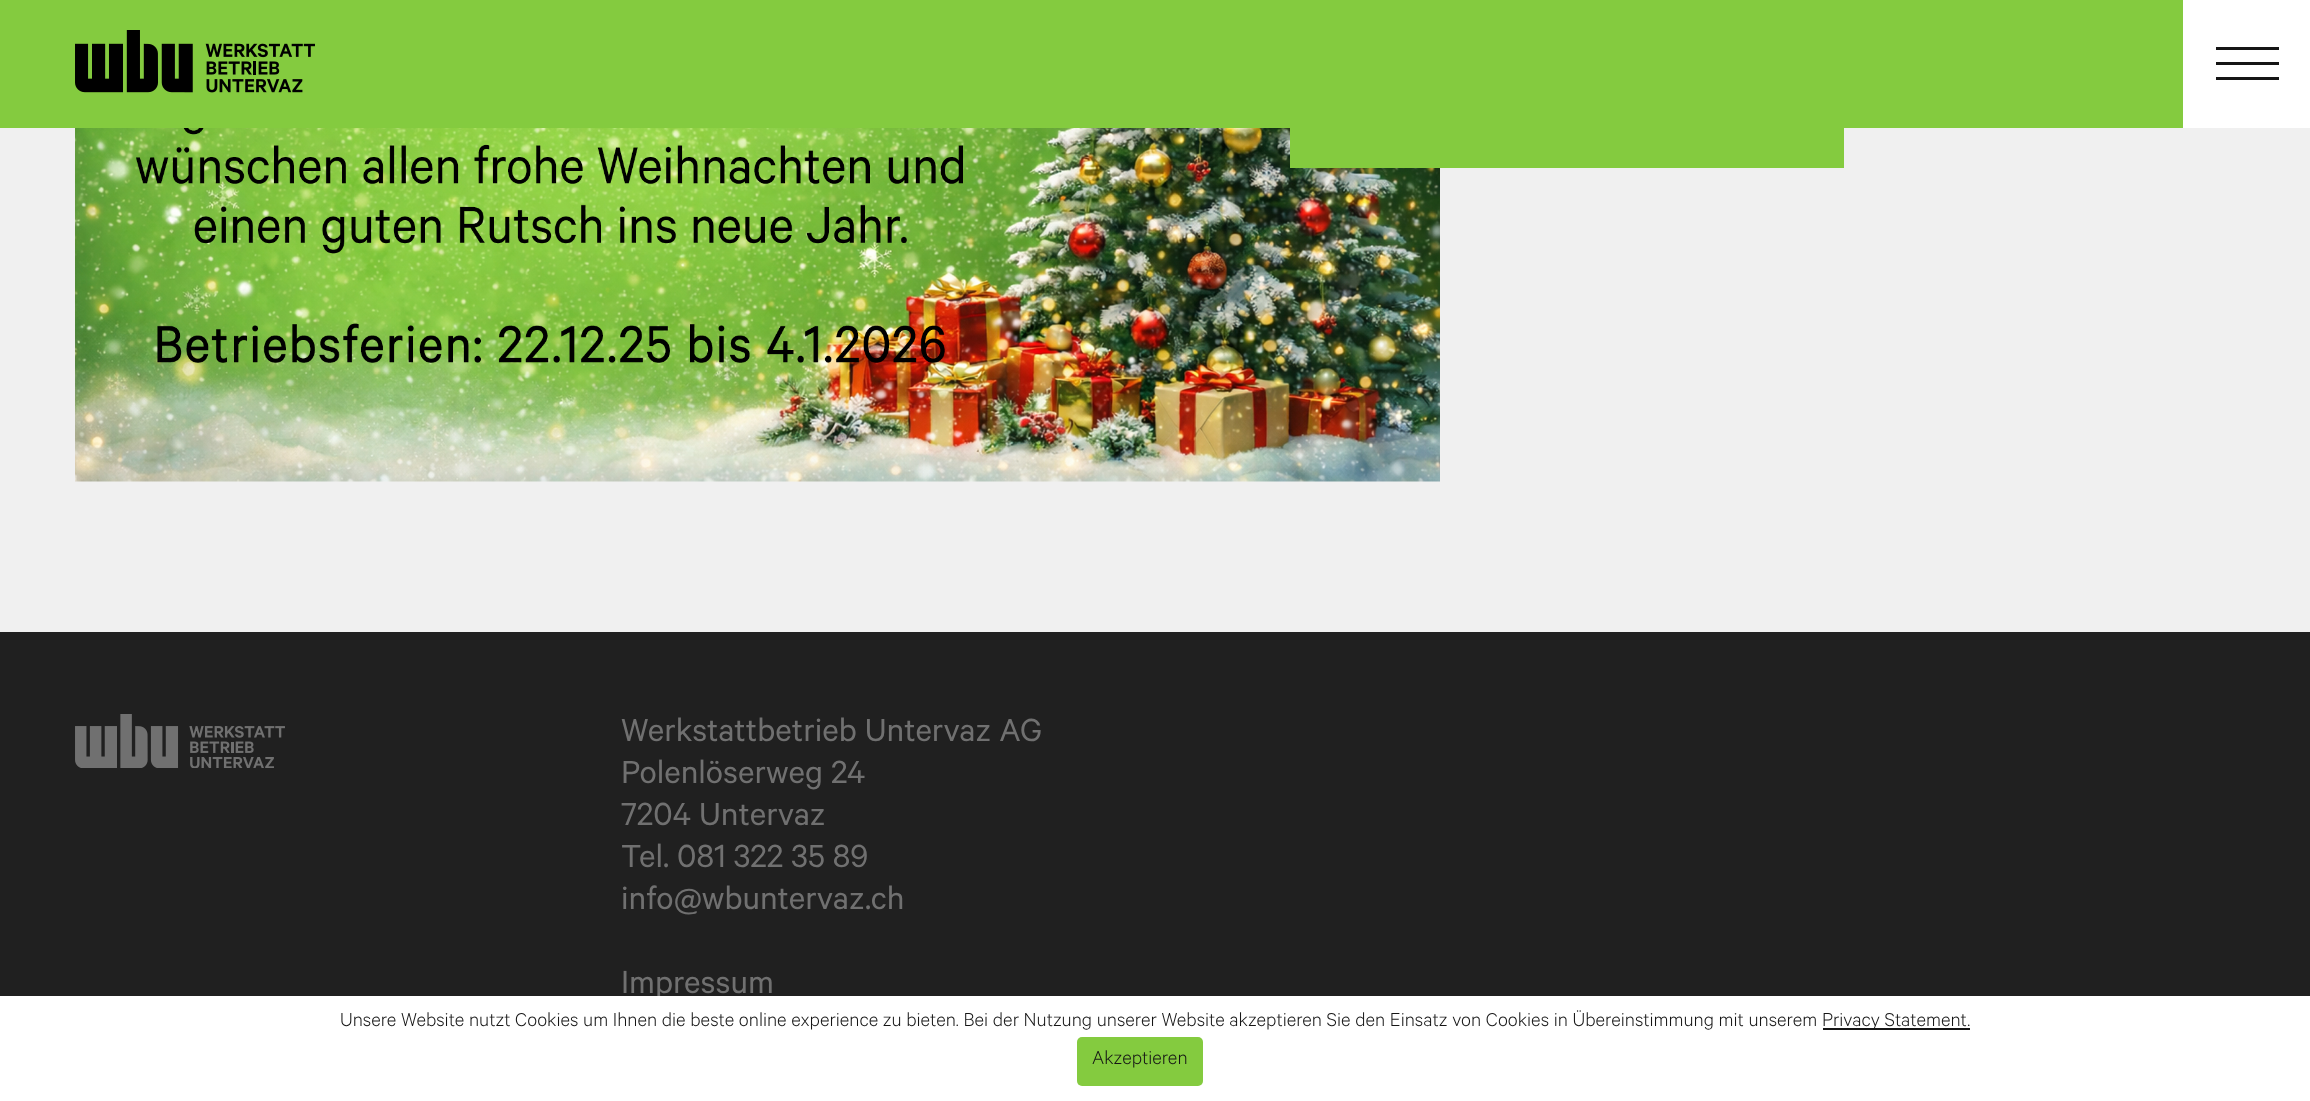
async function draw(canvas) {
  canvas.width = 2310
  canvas.height = 1101
  const ctx = canvas.getContext('2d')
  ctx.miterLimit = 4
  ctx.fontKerning = 'normal'
  async function loadImage(src) {
    const img = new Image()
    img.src = src
    await img.decode()
    return img
  }

  ctx.fillStyle = '#f0f0f0'
  ctx.fillRect(0, 0, 2310, 1101)
  ctx.fillStyle = '#84cb3f'
  ctx.fillRect(0, 0, 2183, 128)
  ctx.drawImage(await loadImage('image0.png'), 75, 30, 240, 63)
  ctx.fillStyle = '#fff'
  ctx.fillRect(2183, 0, 127, 128)
  ctx.fillStyle = '#151515'
  ctx.fillRect(2216, 47, 63, 3)
  ctx.fillRect(2216, 62, 63, 3)
  ctx.fillRect(2216, 77, 63, 3)
  ctx.drawImage(await loadImage('image1.png'), 75, 128, 1365, 354)
  ctx.fillStyle = '#84cb3f'
  ctx.fillRect(1290, 128, 554, 40)
  ctx.fillStyle = '#202020'
  ctx.fillRect(0, 632, 2310, 364)
  ctx.drawImage(await loadImage('image2.png'), 75, 714, 210, 54)
  ctx.font = '36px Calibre'
  ctx.fillStyle = '#707070'
  ctx.fillText('Werkstattbetrieb Untervaz AG', 621, 741)
  ctx.fillText('Polenlöserweg 24', 621, 783)
  ctx.fillText('7204 Untervaz', 621, 825)
  ctx.fillText('Tel. 081 322 35 89', 621, 867)
  ctx.fillText('info@wbuntervaz.ch', 621, 909)
  ctx.fillText('Impressum', 621, 993)
  ctx.fillStyle = '#fff'
  ctx.fillRect(0, 996, 2310, 105)
  ctx.font = '300 21px Calibre'
  ctx.fillStyle = '#151515'
  ctx.fillText('Unsere Website nutzt Cookies um Ihnen die beste online experience zu bieten. Bei der Nutzung unserer Website akzeptieren Sie den Einsatz von Cookies in Übereinstimmung mit unserem', 340, 1026)
  ctx.fillRect(1823, 1028, 147, 2)
  ctx.fillText('Privacy Statement.', 1822, 1026)
  ctx.fillStyle = '#84cb3f'
  ctx.beginPath()
  ctx.roundRect(1077, 1037, 126, 49, 5)
  ctx.fill()
  ctx.fillStyle = '#151515'
  ctx.fillText('Akzeptieren', 1092, 1064)
}

draw(document.querySelector('canvas'))
